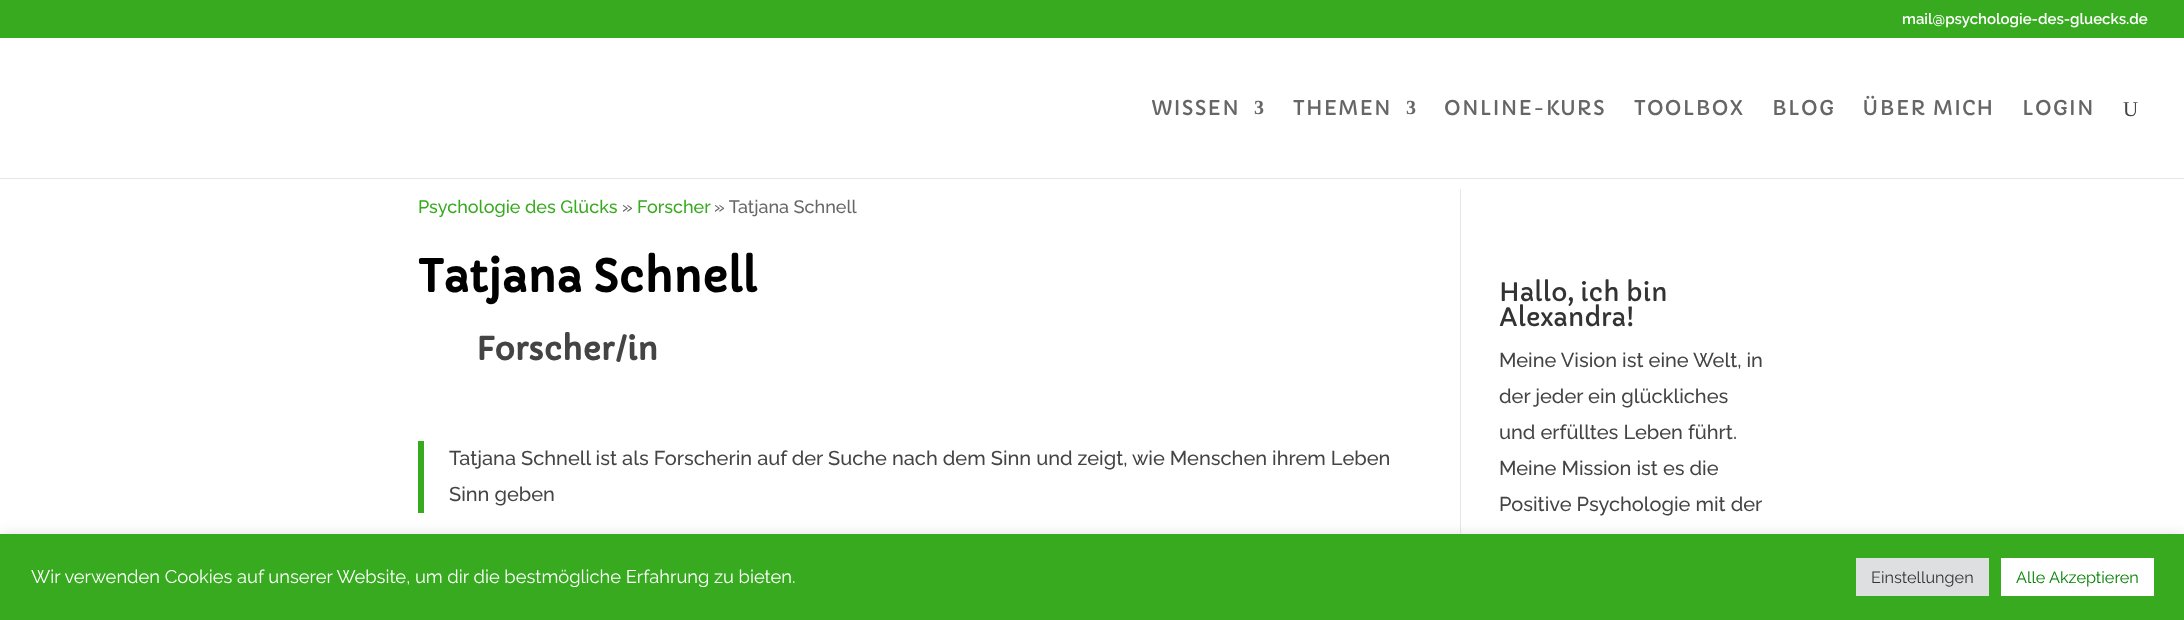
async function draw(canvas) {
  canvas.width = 2184
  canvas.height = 620
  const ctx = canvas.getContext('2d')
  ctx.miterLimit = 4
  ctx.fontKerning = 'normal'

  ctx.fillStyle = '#fff'
  ctx.fillRect(0, 0, 2184, 620)
  ctx.fillStyle = '#37aa1f'
  ctx.fillRect(0, 0, 2184, 38)
  ctx.font = '100 15px "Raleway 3"'
  ctx.fillStyle = '#fff'
  ctx.fillText('mail@psychologie-des-gluecks.de', 1902, 24)
  ctx.fillStyle = '#e6e6e6'
  ctx.fillRect(0, 178, 2184, 1)
  ctx.letterSpacing = '1.25px'
  ctx.font = '20px Capriola'
  ctx.fillStyle = '#666'
  ctx.fillText('WISSEN', 1151, 115)
  ctx.font = 'bold 20px Liberation Serif'
  ctx.fillText('3', 1254, 114)
  ctx.font = '20px Capriola'
  ctx.fillText('THEMEN', 1293, 115)
  ctx.font = 'bold 20px Liberation Serif'
  ctx.fillText('3', 1406, 114)
  ctx.font = '20px Capriola'
  ctx.fillText('ONLINE-KURS', 1444, 115)
  ctx.fillText('TOOLBOX', 1634, 115)
  ctx.fillText('BLOG', 1772, 115)
  ctx.fillText('ÜBER MICH', 1862, 115)
  ctx.fillText('LOGIN', 2022, 115)
  ctx.letterSpacing = '0px'
  ctx.font = '21px Liberation Serif'
  ctx.fillStyle = '#444'
  ctx.fillText('U', 2123, 116)
  ctx.font = '100 18px Raleway'
  ctx.fillStyle = '#37aa1f'
  ctx.fillText('Psychologie des Glücks', 418, 213)
  ctx.fillStyle = '#666'
  ctx.fillText('»', 622, 213)
  ctx.fillStyle = '#37aa1f'
  ctx.fillText('Forscher', 637, 213)
  ctx.fillStyle = '#666'
  ctx.fillText('» Tatjana Schnell', 714, 213)
  ctx.font = 'bold 43.75px Capriola'
  ctx.fillStyle = '#000'
  ctx.fillText('Tatjana Schnell', 418, 292)
  ctx.font = 'bold 31.25px Capriola'
  ctx.fillStyle = '#444'
  ctx.fillText('Forscher/in', 476, 360)
  ctx.fillStyle = '#37aa1f'
  ctx.fillRect(418, 441, 6, 72)
  ctx.font = '100 20px Raleway'
  ctx.fillStyle = '#444'
  ctx.fillText('Tatjana Schnell ist als Forscherin auf der Suche nach dem Sinn und zeigt, wie Menschen ihrem Leben', 449, 465)
  ctx.fillText('Sinn geben', 449, 501)
  ctx.fillStyle = '#e6e6e6'
  ctx.fillRect(1460, 189, 1, 345)
  ctx.font = '25px Capriola'
  ctx.fillStyle = '#333'
  ctx.fillText('Hallo, ich bin', 1499, 301)
  ctx.fillText('Alexandra!', 1499, 326)
  ctx.font = '100 20px Raleway'
  ctx.fillStyle = '#444'
  ctx.fillText('Meine Vision ist eine Welt, in', 1499, 367)
  ctx.fillText('der jeder ein glückliches', 1499, 403)
  ctx.fillText('und erfülltes Leben führt.', 1499, 439)
  ctx.fillText('Meine Mission ist es die', 1499, 475)
  ctx.fillText('Positive Psychologie mit der', 1499, 511)
  ctx.fillStyle = '#acabab4d'
  ctx.filter = 'blur(6px)'
  ctx.beginPath()
  ctx.rect(0, 533, 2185, 86)
  ctx.fill()
  ctx.filter = 'none'
  ctx.fillStyle = '#37aa1f'
  ctx.fillRect(0, 534, 2184, 86)
  ctx.font = '100 18.35px "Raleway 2"'
  ctx.fillStyle = '#fff'
  ctx.fillText('Wir verwenden Cookies auf unserer Website, um dir die bestmögliche Erfahrung zu bieten.', 31, 583)
  ctx.fillStyle = '#dedfe0'
  ctx.fillRect(1856, 558, 133, 38)
  ctx.font = '100 16.25px "Raleway 2"'
  ctx.fillStyle = '#333'
  ctx.fillText('Einstellungen', 1871, 583)
  ctx.fillStyle = '#fff'
  ctx.fillRect(2001, 558, 153, 38)
  ctx.fillStyle = '#008000'
  ctx.fillText('Alle Akzeptieren', 2016, 583)
}

draw(document.querySelector('canvas'))
